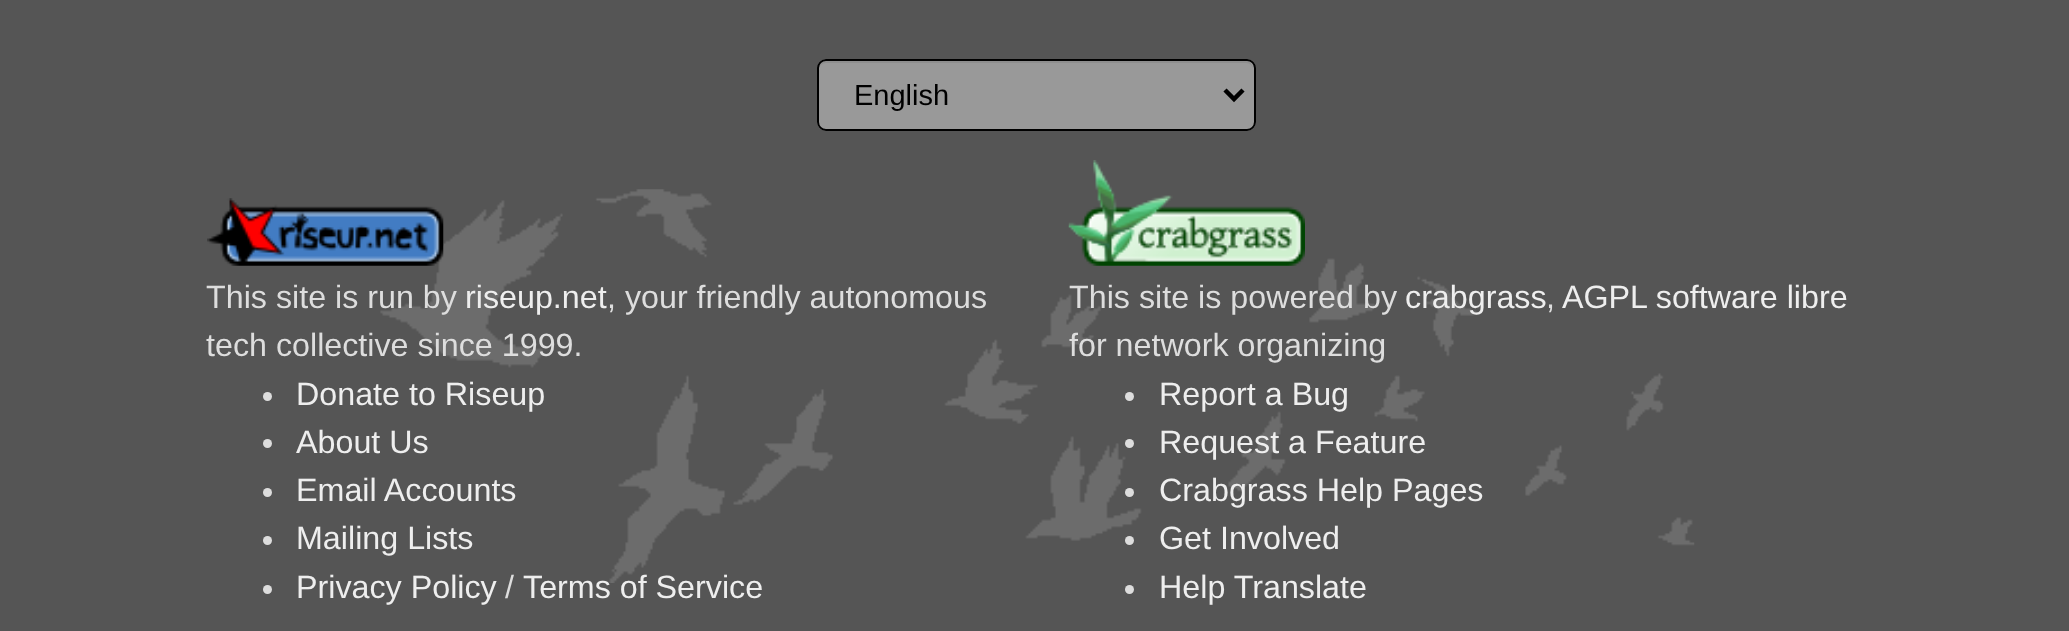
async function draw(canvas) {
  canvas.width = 2069
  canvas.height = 631
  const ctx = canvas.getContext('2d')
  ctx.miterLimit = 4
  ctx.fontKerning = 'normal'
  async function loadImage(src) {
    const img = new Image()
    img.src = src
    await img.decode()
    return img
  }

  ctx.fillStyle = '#555'
  ctx.fillRect(0, 0, 2069, 631)
  ctx.drawImage(await loadImage('image0.png'), 380, 189, 1315, 394)
  ctx.fillStyle = '#999'
  ctx.beginPath()
  ctx.roundRect(817, 59, 439, 72, 9)
  ctx.fill()
  ctx.fillStyle = '#8e8e8e'
  ctx.beginPath()
  ctx.moveTo(826, 63)
  ctx.lineTo(1246, 63)
  ctx.bezierCurveTo(1250, 63, 1253, 66, 1253, 70)
  ctx.bezierCurveTo(1253, 66, 1251, 61, 1246, 61)
  ctx.lineTo(826, 61)
  ctx.bezierCurveTo(821, 61, 819, 66, 819, 70)
  ctx.bezierCurveTo(819, 66, 822, 63, 826, 63)
  ctx.closePath()
  ctx.fill()
  ctx.beginPath()
  ctx.roundRect(818, 60, 437, 70, 8)
  ctx.strokeStyle = '#000'
  ctx.lineWidth = 2
  ctx.stroke()
  ctx.beginPath()
  ctx.moveTo(1225, 90)
  ctx.lineTo(1234, 99)
  ctx.lineTo(1243, 90)
  ctx.lineWidth = 4.5
  ctx.stroke()
  ctx.font = '29px Liberation Sans'
  ctx.fillStyle = '#000'
  ctx.fillText('English', 854, 105)
  ctx.drawImage(await loadImage('image1.png'), 207, 198, 237, 68)
  ctx.font = '32.25px Liberation Sans'
  ctx.fillStyle = '#ddd'
  ctx.fillText('This site is run by', 206, 308)
  ctx.fillStyle = '#eee'
  ctx.fillText('riseup.net', 465, 308)
  ctx.fillStyle = '#ddd'
  ctx.fillText(', your friendly autonomous', 607, 308)
  ctx.fillText('tech collective since 1999.', 206, 356)
  ctx.beginPath()
  ctx.arc(267.5, 396.5, 4.5, 0, 2 * Math.PI)
  ctx.fill()
  ctx.fillStyle = '#eee'
  ctx.fillText('Donate to Riseup', 296, 405)
  ctx.fillStyle = '#ddd'
  ctx.beginPath()
  ctx.arc(267.5, 443.5, 4.5, 0, 2 * Math.PI)
  ctx.fill()
  ctx.fillStyle = '#eee'
  ctx.fillText('About Us', 296, 453)
  ctx.fillStyle = '#ddd'
  ctx.beginPath()
  ctx.arc(267.5, 492.5, 4.5, 0, 2 * Math.PI)
  ctx.fill()
  ctx.fillStyle = '#eee'
  ctx.fillText('Email Accounts', 296, 501)
  ctx.fillStyle = '#ddd'
  ctx.beginPath()
  ctx.arc(267.5, 540.5, 4.5, 0, 2 * Math.PI)
  ctx.fill()
  ctx.fillStyle = '#eee'
  ctx.fillText('Mailing Lists', 296, 549)
  ctx.fillStyle = '#ddd'
  ctx.beginPath()
  ctx.arc(267.5, 589.5, 4.5, 0, 2 * Math.PI)
  ctx.fill()
  ctx.fillStyle = '#eee'
  ctx.fillText('Privacy Policy', 296, 598)
  ctx.fillStyle = '#ddd'
  ctx.fillText('/', 505, 598)
  ctx.fillStyle = '#eee'
  ctx.fillText('Terms of Service', 523, 598)
  ctx.drawImage(await loadImage('image2.png'), 1068, 160, 237, 106)
  ctx.fillStyle = '#ddd'
  ctx.fillText('This site is powered by', 1069, 308)
  ctx.fillStyle = '#eee'
  ctx.fillText('crabgrass', 1405, 308)
  ctx.fillStyle = '#ddd'
  ctx.fillText(',', 1546, 308)
  ctx.fillStyle = '#eee'
  ctx.fillText('AGPL software libre', 1562, 308)
  ctx.fillStyle = '#ddd'
  ctx.fillText('for network organizing', 1069, 356)
  ctx.beginPath()
  ctx.arc(1129.5, 396.5, 4.5, 0, 2 * Math.PI)
  ctx.fill()
  ctx.fillStyle = '#eee'
  ctx.fillText('Report a Bug', 1159, 405)
  ctx.fillStyle = '#ddd'
  ctx.beginPath()
  ctx.arc(1129.5, 443.5, 4.5, 0, 2 * Math.PI)
  ctx.fill()
  ctx.fillStyle = '#eee'
  ctx.fillText('Request a Feature', 1159, 453)
  ctx.fillStyle = '#ddd'
  ctx.beginPath()
  ctx.arc(1129.5, 492.5, 4.5, 0, 2 * Math.PI)
  ctx.fill()
  ctx.fillStyle = '#eee'
  ctx.fillText('Crabgrass Help Pages', 1159, 501)
  ctx.fillStyle = '#ddd'
  ctx.beginPath()
  ctx.arc(1129.5, 540.5, 4.5, 0, 2 * Math.PI)
  ctx.fill()
  ctx.fillStyle = '#eee'
  ctx.fillText('Get Involved', 1159, 549)
  ctx.fillStyle = '#ddd'
  ctx.beginPath()
  ctx.arc(1129.5, 589.5, 4.5, 0, 2 * Math.PI)
  ctx.fill()
  ctx.fillStyle = '#eee'
  ctx.fillText('Help Translate', 1159, 598)
}

draw(document.querySelector('canvas'))
